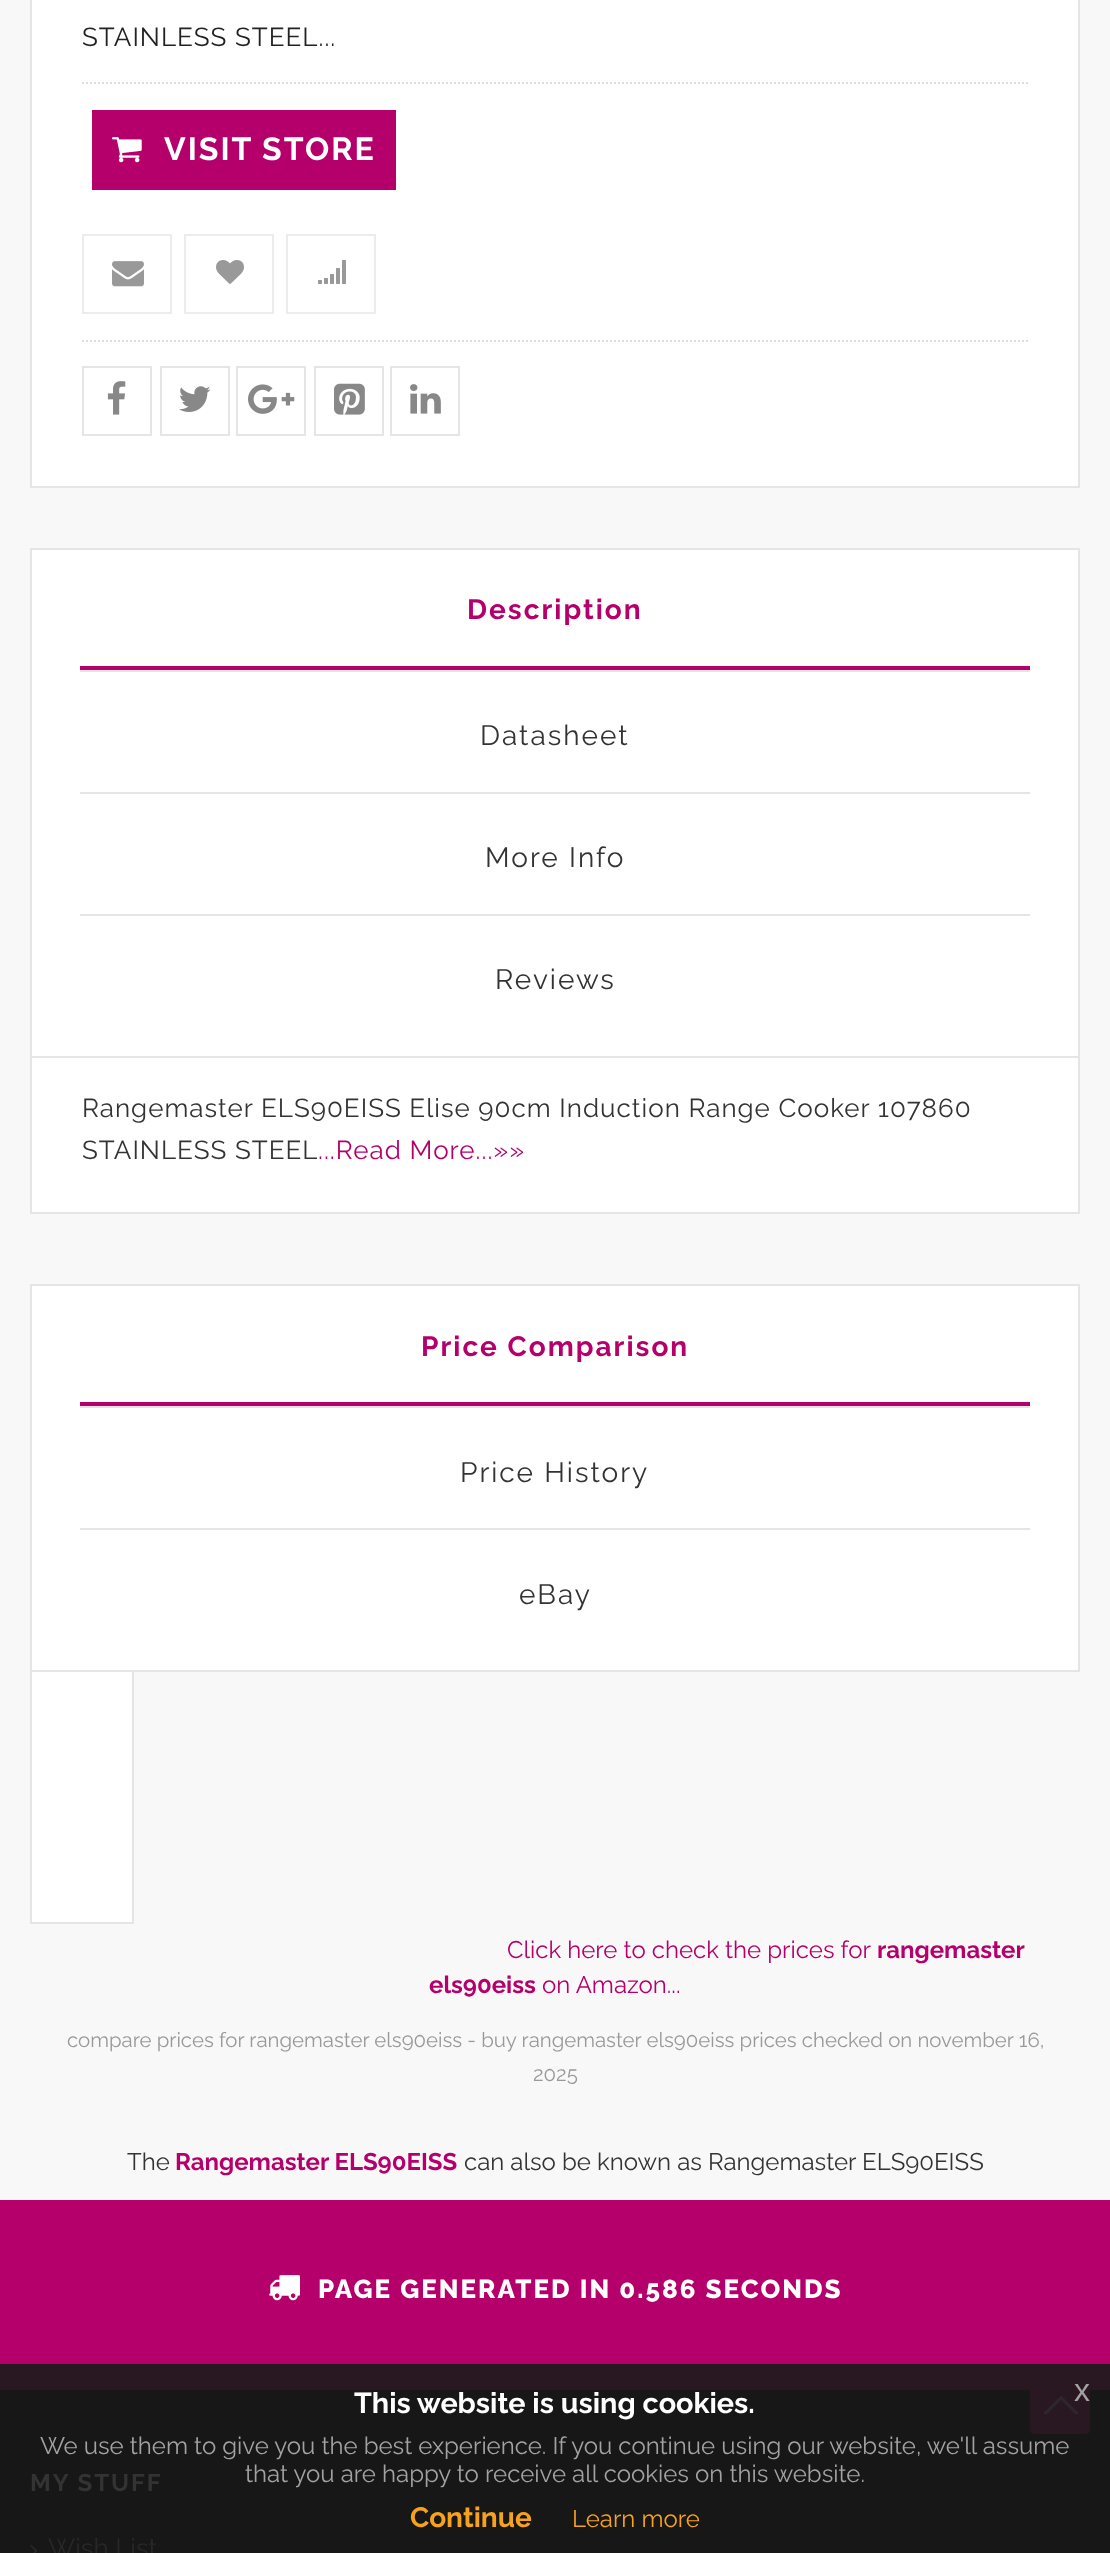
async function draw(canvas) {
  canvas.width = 1110
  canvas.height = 2553
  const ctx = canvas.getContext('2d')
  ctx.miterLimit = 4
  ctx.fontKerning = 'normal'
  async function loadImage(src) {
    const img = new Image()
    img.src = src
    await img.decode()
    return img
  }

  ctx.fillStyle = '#f8f8f8'
  ctx.fillRect(0, 0, 1110, 2553)
  ctx.fillStyle = '#fff'
  ctx.beginPath()
  ctx.rect(31, -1, 1048, 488)
  ctx.fill()
  ctx.strokeStyle = '#e5e5e5'
  ctx.lineWidth = 2
  ctx.stroke()
  ctx.beginPath()
  ctx.moveTo(82, 83)
  ctx.lineTo(1028, 83)
  ctx.strokeStyle = '#ddd'
  ctx.setLineDash([2, 2])
  ctx.stroke()
  ctx.letterSpacing = '1px'
  ctx.font = '26px Raleway'
  ctx.fillStyle = '#222'
  ctx.fillText('STAINLESS STEEL...', 82, 46)
  ctx.beginPath()
  ctx.moveTo(82, 341)
  ctx.lineTo(1028, 341)
  ctx.stroke()
  ctx.fillStyle = '#b5006c'
  ctx.fillRect(92, 110, 304, 80)
  ctx.drawImage(await loadImage('image0.png'), 112, 137, 30, 26)
  ctx.letterSpacing = '2px'
  ctx.font = 'bold 32px Raleway'
  ctx.fillStyle = '#fff'
  ctx.fillText('VISIT STORE', 164, 160)
  ctx.strokeStyle = '#ececec'
  ctx.setLineDash([])
  ctx.strokeRect(83, 235, 88, 78)
  ctx.drawImage(await loadImage('image1.png'), 112, 261, 32, 26)
  ctx.strokeRect(185, 235, 88, 78)
  ctx.drawImage(await loadImage('image2.png'), 216, 260, 28, 24)
  ctx.strokeRect(287, 235, 88, 78)
  ctx.drawImage(await loadImage('image3.png'), 318, 260, 28, 24)
  ctx.strokeStyle = '#e5e5e5'
  ctx.strokeRect(83, 367, 68, 68)
  ctx.drawImage(await loadImage('image4.png'), 107, 381, 19, 34)
  ctx.strokeRect(161, 367, 68, 68)
  ctx.drawImage(await loadImage('image5.png'), 179, 386, 32, 26)
  ctx.strokeRect(237, 367, 68, 68)
  ctx.drawImage(await loadImage('image6.png'), 248, 384, 47, 30)
  ctx.strokeRect(315, 367, 68, 68)
  ctx.drawImage(await loadImage('image7.png'), 334, 383, 31, 32)
  ctx.strokeRect(391, 367, 68, 68)
  ctx.drawImage(await loadImage('image8.png'), 410, 384, 31, 30)
  ctx.beginPath()
  ctx.rect(31, 549, 1048, 508)
  ctx.fill()
  ctx.stroke()
  ctx.fillStyle = '#e5e5e5'
  ctx.fillRect(80, 670, 950, 2)
  ctx.fillStyle = '#b5006c'
  ctx.fillRect(80, 666, 950, 4)
  ctx.font = 'bold 28px Raleway'
  ctx.fillText('Description', 467, 619)
  ctx.fillStyle = '#e5e5e5'
  ctx.fillRect(80, 792, 950, 2)
  ctx.font = '28px Raleway'
  ctx.fillStyle = '#333'
  ctx.fillText('Datasheet', 480, 745)
  ctx.fillStyle = '#e5e5e5'
  ctx.fillRect(80, 914, 950, 2)
  ctx.fillStyle = '#333'
  ctx.fillText('More Info', 485, 867)
  ctx.fillText('Reviews', 495, 989)
  ctx.fillStyle = '#fff'
  ctx.fillRect(32, 1058, 1046, 154)
  ctx.fillStyle = '#e5e5e5'
  ctx.fillRect(1078, 1058, 2, 156)
  ctx.fillRect(30, 1212, 1050, 2)
  ctx.fillRect(30, 1058, 2, 156)
  ctx.letterSpacing = '1px'
  ctx.font = '26px Raleway'
  ctx.fillStyle = '#333'
  ctx.fillText('Rangemaster ELS90EISS Elise 90cm Induction Range Cooker 107860', 82, 1117)
  ctx.fillText('STAINLESS STEEL', 82, 1159)
  ctx.fillStyle = '#b5006c'
  ctx.fillText('...Read More...»»', 318, 1159)
  ctx.fillStyle = '#fff'
  ctx.beginPath()
  ctx.rect(31, 1285, 1048, 386)
  ctx.fill()
  ctx.stroke()
  ctx.fillStyle = '#e5e5e5'
  ctx.fillRect(80, 1406, 950, 2)
  ctx.fillStyle = '#b5006c'
  ctx.fillRect(80, 1402, 950, 4)
  ctx.letterSpacing = '2px'
  ctx.font = 'bold 28px Raleway'
  ctx.fillText('Price Comparison', 421, 1356)
  ctx.fillStyle = '#e5e5e5'
  ctx.fillRect(80, 1528, 950, 2)
  ctx.font = '28px Raleway'
  ctx.fillStyle = '#333'
  ctx.fillText('Price History', 460, 1482)
  ctx.fillText('eBay', 519, 1604)
  ctx.fillStyle = '#fff'
  ctx.fillRect(32, 1672, 100, 250)
  ctx.fillStyle = '#e5e5e5'
  ctx.fillRect(132, 1672, 2, 252)
  ctx.fillRect(30, 1922, 104, 2)
  ctx.fillRect(30, 1672, 2, 252)
  ctx.letterSpacing = '0px'
  ctx.font = '24px Raleway'
  ctx.fillStyle = '#b5006c'
  ctx.fillText('Click here to check the prices for', 507, 1958)
  ctx.font = 'bold 24px Raleway'
  ctx.fillText('rangemaster', 877, 1958)
  ctx.fillText('els90eiss', 429, 1993)
  ctx.font = '24px Raleway'
  ctx.fillText('on Amazon...', 542, 1993)
  ctx.font = '20.4px Raleway'
  ctx.fillStyle = '#999'
  ctx.fillText('compare prices for rangemaster els90eiss - buy rangemaster els90eiss prices checked on november 16,', 67, 2047)
  ctx.fillText('2025', 533, 2081)
  ctx.font = '24px Raleway'
  ctx.fillStyle = '#333'
  ctx.fillText('The', 127, 2170)
  ctx.font = 'bold 24px Raleway'
  ctx.fillStyle = '#b5006c'
  ctx.fillText('Rangemaster ELS90EISS', 175, 2170)
  ctx.font = '24px Raleway'
  ctx.fillStyle = '#333'
  ctx.fillText('can also be known as Rangemaster ELS90EISS', 464, 2170)
  ctx.fillStyle = '#b5006c'
  ctx.fillRect(0, 2200, 1110, 164)
  ctx.fillStyle = '#291721'
  ctx.fillRect(0, 2364, 1110, 26)
  ctx.drawImage(await loadImage('image9.png'), 269, 2275, 31, 26)
  ctx.letterSpacing = '2px'
  ctx.font = '800 26px Raleway'
  ctx.fillStyle = '#fff'
  ctx.fillText('PAGE GENERATED IN 0.586 SECONDS', 318, 2298)
  ctx.fillStyle = '#171717'
  ctx.fillRect(0, 2390, 1110, 163)
  ctx.font = 'bold 24px Raleway'
  ctx.fillStyle = '#333'
  ctx.fillText('MY STUFF', 30, 2491)
  ctx.drawImage(await loadImage('image10.png'), 30, 2544, 8, 9)
  ctx.letterSpacing = '0px'
  ctx.font = '26px Raleway'
  ctx.fillStyle = '#282828'
  ctx.fillText('Wish List', 48, 2557)
  ctx.fillStyle = '#291721fc'
  ctx.beginPath()
  ctx.roundRect(1030, 2374, 60, 60, 4)
  ctx.fill()
  ctx.drawImage(await loadImage('image11.png'), 1044, 2396, 34, 18)
  ctx.font = 'bold 28.75px Raleway'
  ctx.fillStyle = '#fff'
  ctx.fillText('This website is using cookies.', 354, 2413)
  ctx.font = '32px Liberation Sans'
  ctx.fillStyle = '#a2a2a2'
  ctx.fillText('x', 1074, 2401)
  ctx.font = '24px Raleway'
  ctx.fillText('We use them to give you the best experience. If you continue using our website, we\'ll assume', 40, 2454)
  ctx.fillText('that you are happy to receive all cookies on this website.', 245, 2482)
  ctx.font = 'bold 28px Raleway'
  ctx.fillStyle = '#f6a21d'
  ctx.fillText('Continue', 410, 2527)
  ctx.font = '24px Raleway'
  ctx.fillText('Learn more', 572, 2527)
}

draw(document.querySelector('canvas'))
